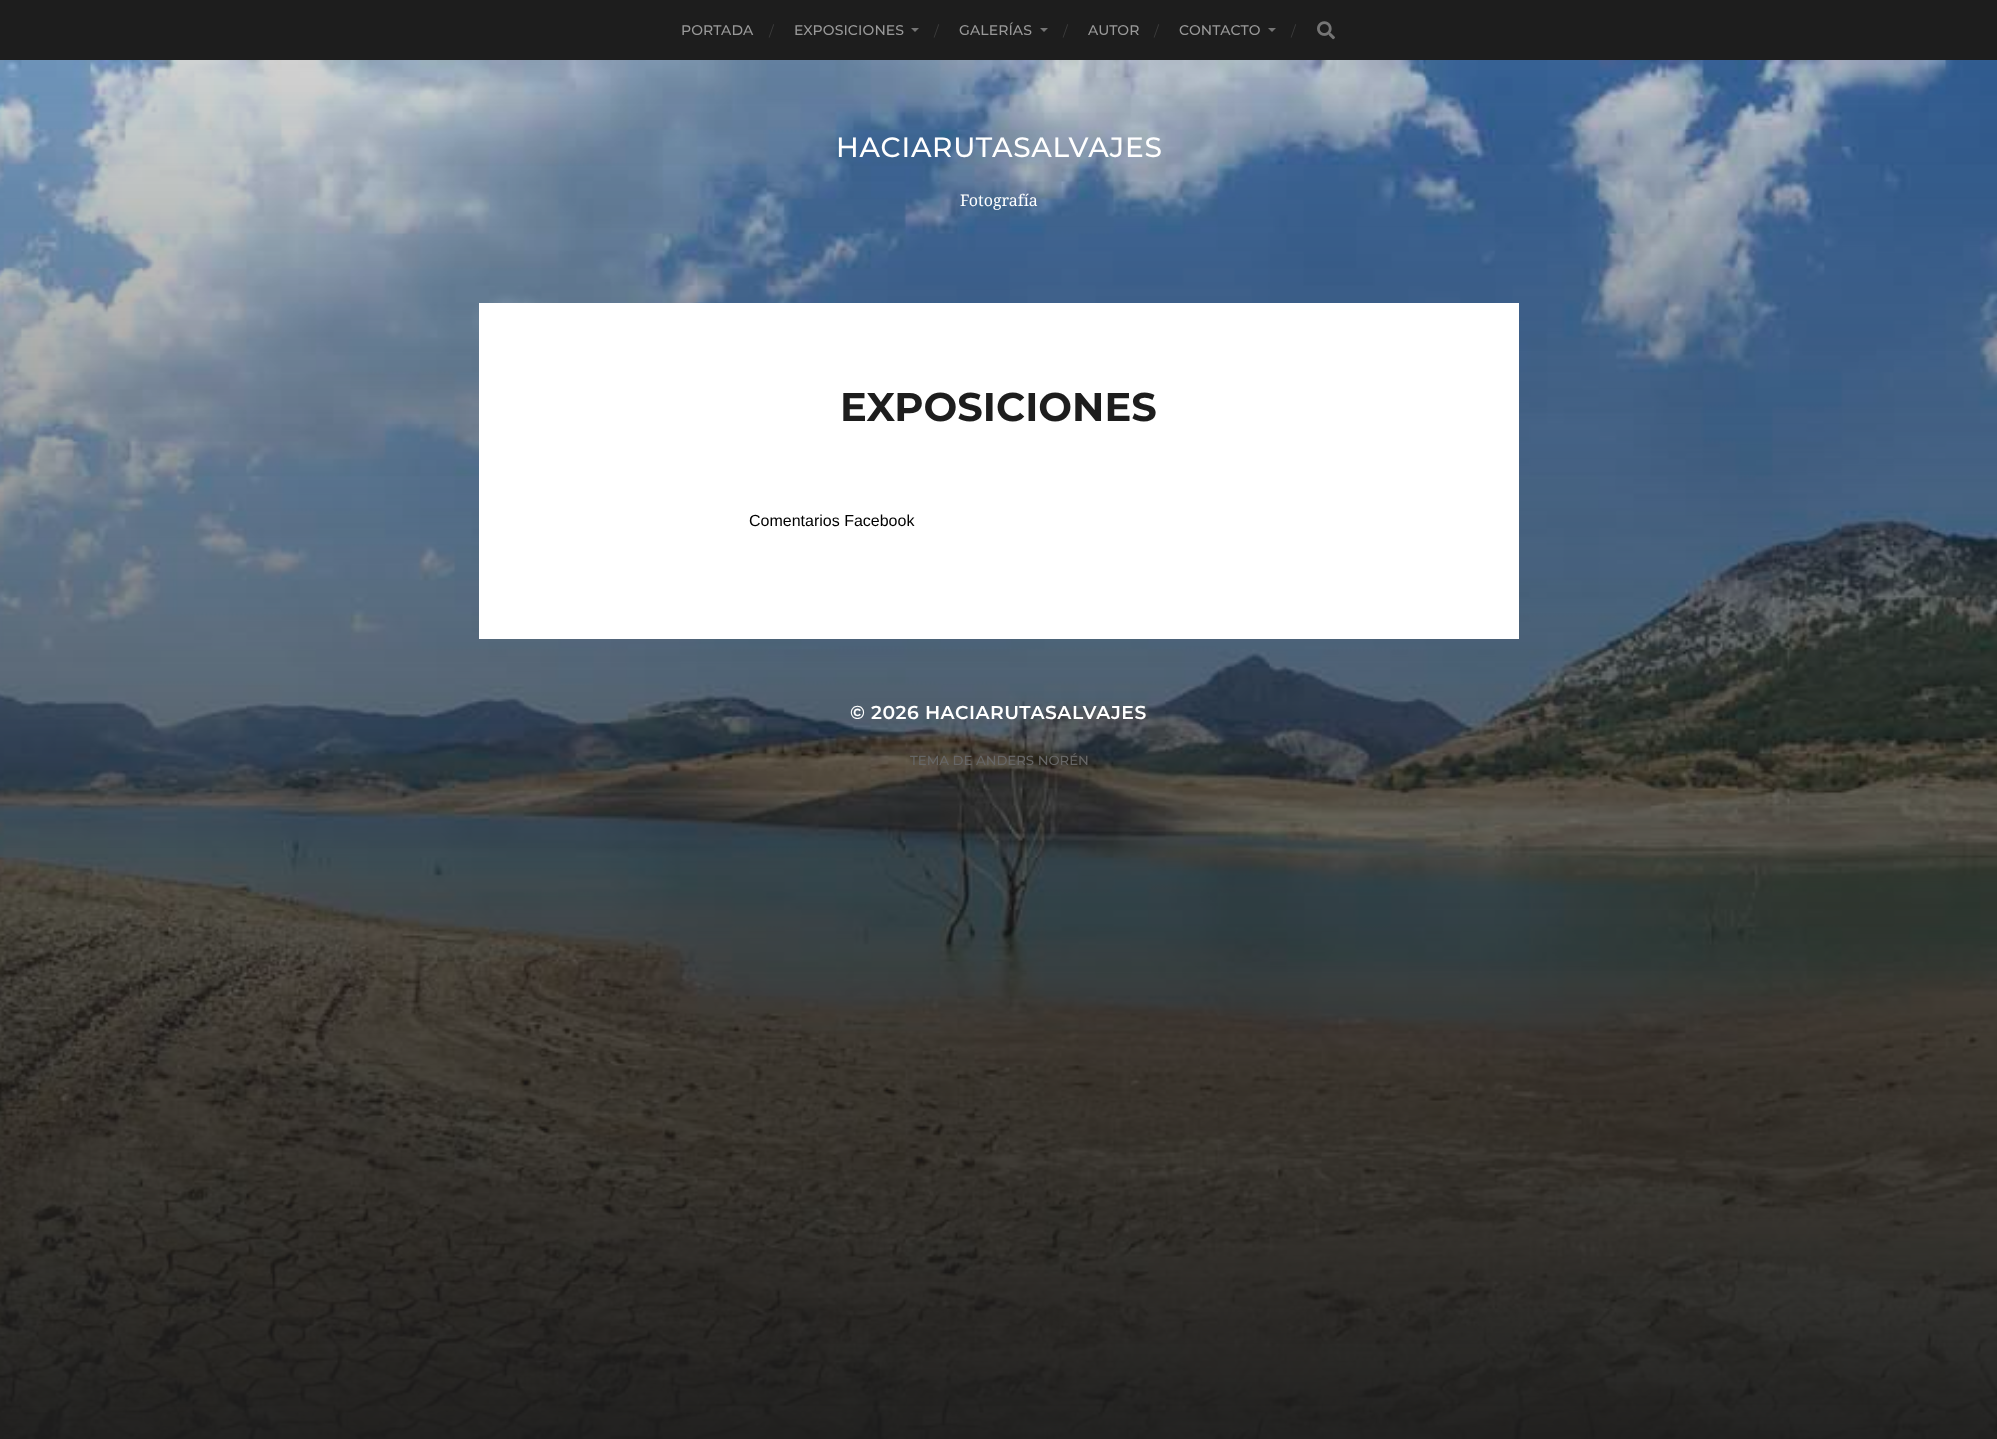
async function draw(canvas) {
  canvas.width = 1997
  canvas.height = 1439
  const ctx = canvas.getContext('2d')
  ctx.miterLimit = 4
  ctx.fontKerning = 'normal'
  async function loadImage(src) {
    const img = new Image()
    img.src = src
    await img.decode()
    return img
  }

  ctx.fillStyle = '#1d1d1d'
  ctx.fillRect(0, 0, 1997, 1439)
  ctx.letterSpacing = '0.1px'
  ctx.font = '100 14px Montserrat'
  ctx.fillStyle = '#999'
  ctx.fillText('PORTADA', 681, 35)
  ctx.letterSpacing = '0px'
  ctx.font = '100 14px "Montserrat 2"'
  ctx.fillStyle = '#3d3d3d'
  ctx.fillText('/', 769, 36)
  ctx.letterSpacing = '0.1px'
  ctx.font = '100 14px Montserrat'
  ctx.fillStyle = '#999'
  ctx.fillText('EXPOSICIONES', 794, 35)
  ctx.fillStyle = '#757575'
  ctx.beginPath()
  ctx.moveTo(911, 28)
  ctx.lineTo(919, 28)
  ctx.lineTo(915, 32)
  ctx.closePath()
  ctx.fill()
  ctx.letterSpacing = '0px'
  ctx.font = '100 14px "Montserrat 2"'
  ctx.fillStyle = '#3d3d3d'
  ctx.fillText('/', 934, 36)
  ctx.letterSpacing = '0.1px'
  ctx.font = '100 14px Montserrat'
  ctx.fillStyle = '#999'
  ctx.fillText('GALERÍAS', 959, 35)
  ctx.fillStyle = '#757575'
  ctx.beginPath()
  ctx.moveTo(1040, 28)
  ctx.lineTo(1048, 28)
  ctx.lineTo(1044, 32)
  ctx.closePath()
  ctx.fill()
  ctx.letterSpacing = '0px'
  ctx.font = '100 14px "Montserrat 2"'
  ctx.fillStyle = '#3d3d3d'
  ctx.fillText('/', 1063, 36)
  ctx.letterSpacing = '0.1px'
  ctx.font = '100 14px Montserrat'
  ctx.fillStyle = '#999'
  ctx.fillText('AUTOR', 1088, 35)
  ctx.letterSpacing = '0px'
  ctx.font = '100 14px "Montserrat 2"'
  ctx.fillStyle = '#3d3d3d'
  ctx.fillText('/', 1154, 36)
  ctx.letterSpacing = '0.1px'
  ctx.font = '100 14px Montserrat'
  ctx.fillStyle = '#999'
  ctx.fillText('CONTACTO', 1179, 35)
  ctx.fillStyle = '#757575'
  ctx.beginPath()
  ctx.moveTo(1268, 28)
  ctx.lineTo(1276, 28)
  ctx.lineTo(1272, 32)
  ctx.closePath()
  ctx.fill()
  ctx.letterSpacing = '0px'
  ctx.font = '100 14px "Montserrat 2"'
  ctx.fillStyle = '#3d3d3d'
  ctx.fillText('/', 1291, 36)
  ctx.drawImage(await loadImage('image0.png'), 1317, 21, 18, 19)
  ctx.drawImage(await loadImage('image1.png'), 0, 60, 1997, 1379)
  ctx.letterSpacing = '0.75px'
  ctx.font = '100 28px Montserrat'
  ctx.fillStyle = '#fff'
  ctx.fillText('HACIARUTASALVAJES', 836, 157)
  ctx.letterSpacing = '0px'
  ctx.font = '16px Droid Serif'
  ctx.fillText('Fotografía', 960, 206)
  ctx.fillRect(479, 303, 1040, 336)
  ctx.font = '100 40px "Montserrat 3"'
  ctx.fillStyle = '#1d1d1d'
  ctx.fillText('EXPOSICIONES', 840, 421)
  ctx.font = '16px Liberation Sans'
  ctx.fillStyle = '#000'
  ctx.fillText('Comentarios Facebook', 749, 526)
  ctx.letterSpacing = '0.5px'
  ctx.font = '100 18.75px "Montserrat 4"'
  ctx.fillStyle = '#fff'
  ctx.fillText('© 2026 HACIARUTASALVAJES', 850, 719)
  ctx.letterSpacing = '0px'
  ctx.font = '100 13.25px Montserrat'
  ctx.fillStyle = '#666'
  ctx.fillText('TEMA DE ANDERS NORÉN', 910, 765)
}

draw(document.querySelector('canvas'))
